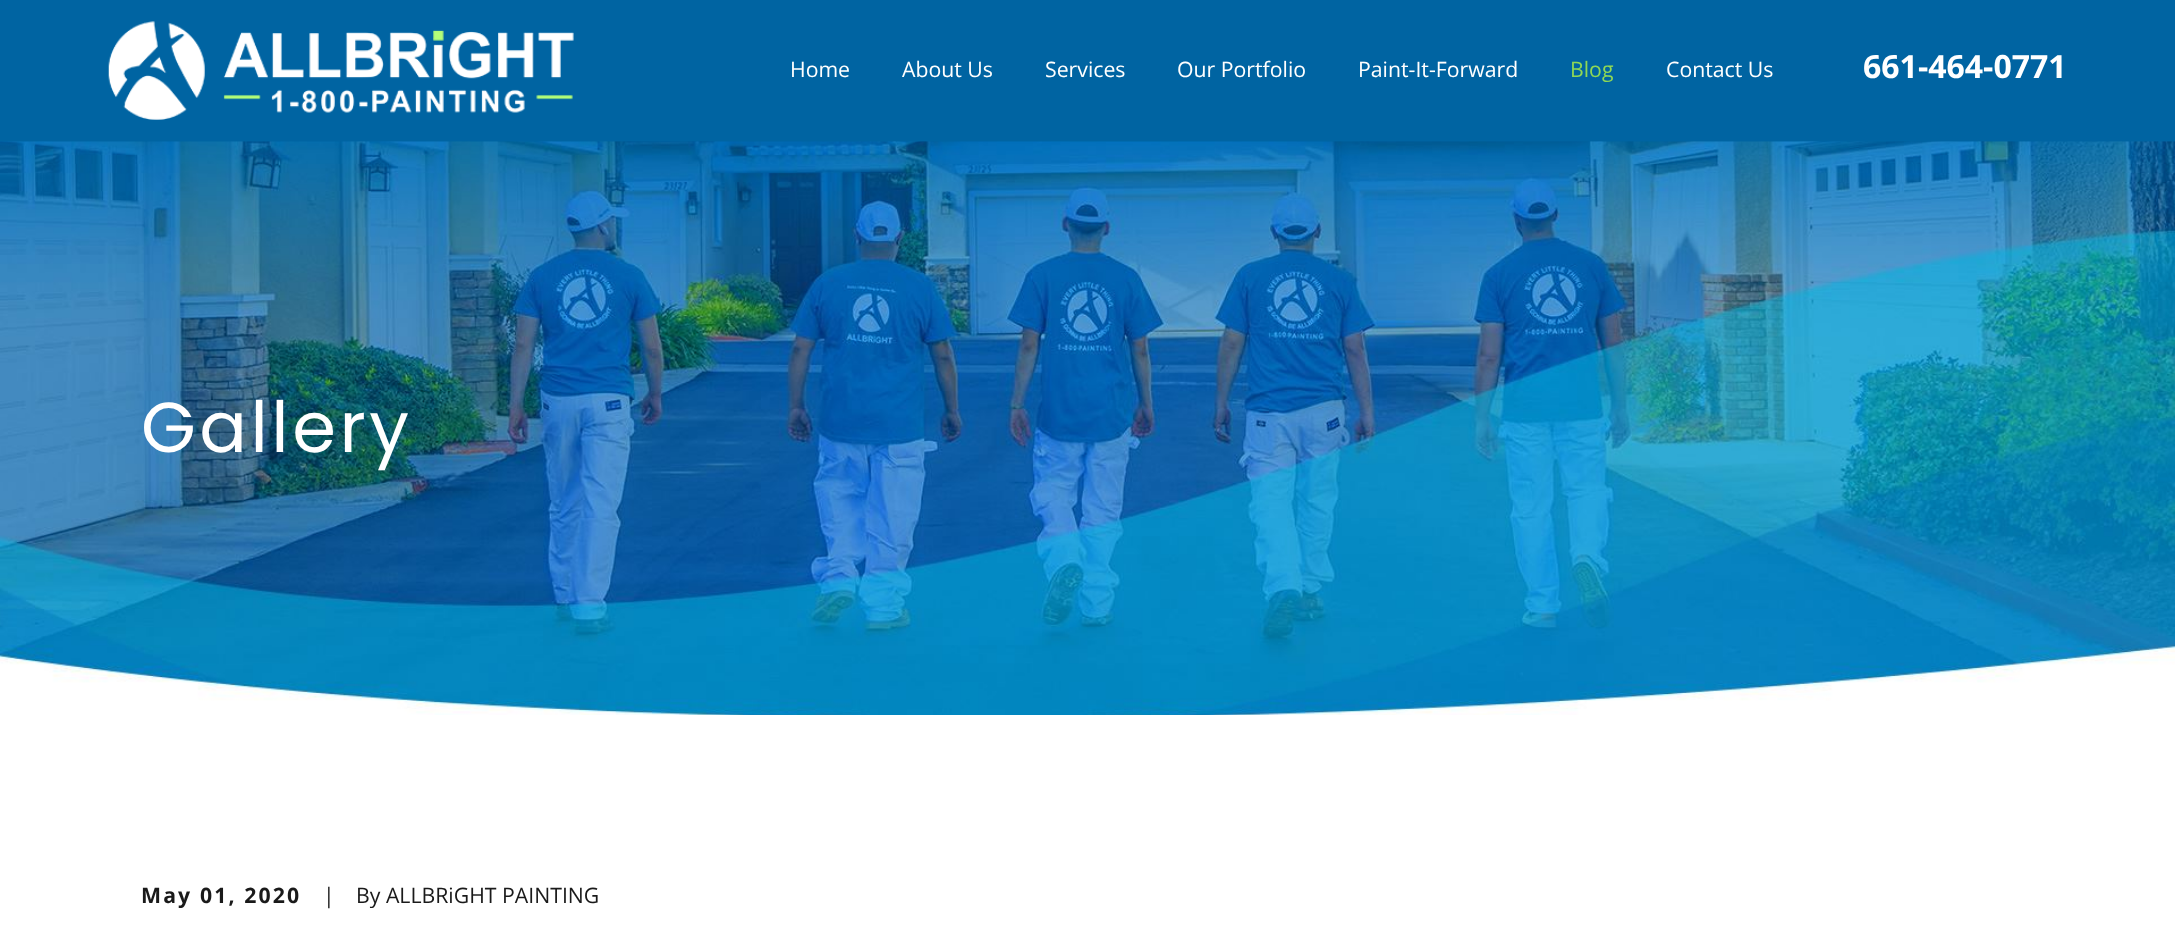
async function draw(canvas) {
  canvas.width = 2175
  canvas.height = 935
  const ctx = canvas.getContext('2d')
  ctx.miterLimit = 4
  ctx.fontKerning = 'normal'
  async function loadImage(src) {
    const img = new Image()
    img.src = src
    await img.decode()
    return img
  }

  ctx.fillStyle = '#fff'
  ctx.fillRect(0, 0, 2175, 935)
  ctx.fillStyle = '#0064a2'
  ctx.fillRect(0, 0, 2175, 142)
  ctx.drawImage(await loadImage('image0.png'), 108, 21, 466, 99)
  ctx.font = '21.25px Open Sans'
  ctx.fillStyle = '#fff'
  ctx.fillText('Home', 790, 77)
  ctx.fillText('About Us', 902, 77)
  ctx.fillText('Services', 1045, 77)
  ctx.fillText('Our Portfolio', 1177, 77)
  ctx.fillText('Paint-It-Forward', 1358, 77)
  ctx.fillStyle = '#8fd855'
  ctx.fillText('Blog', 1570, 77)
  ctx.fillStyle = '#fff'
  ctx.fillText('Contact Us', 1666, 77)
  ctx.font = 'bold 32px Open Sans'
  ctx.fillText('661-464-0771', 1863, 78)
  ctx.drawImage(await loadImage('image1.png'), 0, 141, 2175, 574)
  ctx.letterSpacing = '3.5px'
  ctx.font = '70.5px Poppins'
  ctx.fillText('Gallery', 141, 452)
  ctx.letterSpacing = '2.1px'
  ctx.font = 'bold 21.25px Open Sans'
  ctx.fillStyle = '#1a1a1a'
  ctx.fillText('May 01, 2020', 141, 903)
  ctx.letterSpacing = '0px'
  ctx.font = '21.25px Open Sans'
  ctx.fillText('|', 323, 903)
  ctx.fillText('By ALLBRiGHT PAINTING', 356, 903)
}

draw(document.querySelector('canvas'))
